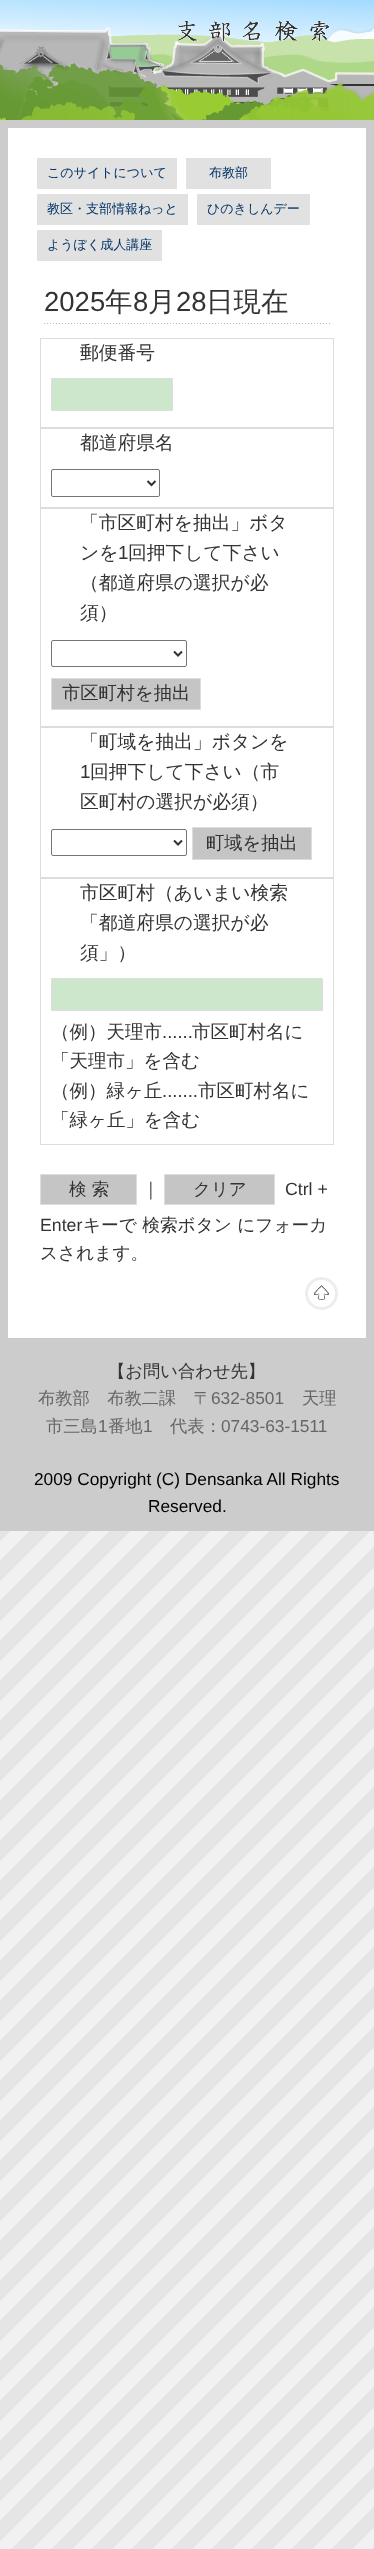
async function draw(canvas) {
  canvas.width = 374
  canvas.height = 2549
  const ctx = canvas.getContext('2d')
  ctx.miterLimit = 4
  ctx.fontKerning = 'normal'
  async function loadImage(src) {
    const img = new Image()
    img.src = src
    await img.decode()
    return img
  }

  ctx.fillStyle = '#fff'
  ctx.fillRect(0, 0, 374, 2549)
  ctx.drawImage(await loadImage('image0.png'), 0, 1531, 374, 1018)
  ctx.fillStyle = '#ccc'
  ctx.fillRect(0, 120, 374, 8)
  ctx.drawImage(await loadImage('image1.png'), 0, 0, 374, 120)
  ctx.drawImage(await loadImage('image2.png'), 178, 20, 152, 22)
  ctx.fillRect(366, 128, 8, 1210)
  ctx.fillRect(0, 128, 8, 1210)
  ctx.fillStyle = '#e1e1e1'
  ctx.fillRect(37, 158, 140, 31)
  ctx.font = '500 13px WenQuanYi Zen Hei'
  ctx.fillStyle = '#036'
  ctx.fillText('このサイトについて', 47, 177)
  ctx.fillStyle = '#e1e1e1'
  ctx.fillRect(186, 158, 85, 31)
  ctx.fillStyle = '#036'
  ctx.fillText('布教部', 209, 177)
  ctx.fillStyle = '#e1e1e1'
  ctx.fillRect(37, 194, 151, 31)
  ctx.fillStyle = '#036'
  ctx.fillText('教区・支部情報ねっと', 47, 213)
  ctx.fillStyle = '#e1e1e1'
  ctx.fillRect(197, 194, 113, 31)
  ctx.fillStyle = '#036'
  ctx.fillText('ひのきしんデー', 207, 213)
  ctx.fillStyle = '#e1e1e1'
  ctx.fillRect(37, 230, 125, 31)
  ctx.fillStyle = '#036'
  ctx.fillText('ようぼく成人講座', 47, 249)
  ctx.drawImage(await loadImage('image3.png'), 44, 323, 286, 1)
  ctx.font = '27.5px Liberation Sans'
  ctx.fillStyle = '#333'
  ctx.fillText('2025', 44, 311)
  ctx.font = '500 27.5px WenQuanYi Zen Hei'
  ctx.fillText('年', 105, 311)
  ctx.font = '27.5px Liberation Sans'
  ctx.fillText('8', 133, 311)
  ctx.font = '500 27.5px WenQuanYi Zen Hei'
  ctx.fillText('月', 148, 311)
  ctx.font = '27.5px Liberation Sans'
  ctx.fillText('28', 176, 311)
  ctx.font = '500 27.5px WenQuanYi Zen Hei'
  ctx.fillText('日現在', 206, 311)
  ctx.strokeStyle = '#ddd'
  ctx.strokeRect(40.5, 338.5, 293, 89)
  ctx.font = '500 18.75px WenQuanYi Zen Hei'
  ctx.fillText('郵便番号', 80, 359)
  ctx.fillStyle = '#cde7cd'
  ctx.beginPath()
  ctx.rect(51.5, 378.5, 121, 32)
  ctx.fill()
  ctx.stroke()
  ctx.strokeRect(40.5, 428.5, 293, 79)
  ctx.fillStyle = '#333'
  ctx.fillText('都道府県名', 80, 449)
  ctx.beginPath()
  ctx.roundRect(51.5, 469.5, 108, 27, 1.5)
  ctx.strokeStyle = '#767676'
  ctx.stroke()
  ctx.beginPath()
  ctx.moveTo(147.5, 481)
  ctx.lineTo(151.5, 485)
  ctx.lineTo(155.5, 481)
  ctx.strokeStyle = '#333'
  ctx.lineWidth = 2
  ctx.stroke()
  ctx.strokeStyle = '#ddd'
  ctx.lineWidth = 1
  ctx.strokeRect(40.5, 508.5, 293, 218)
  ctx.fillText('「市区町村を抽出」ボタ', 80, 529)
  ctx.fillText('ンを', 80, 559)
  ctx.font = '18.75px Liberation Sans'
  ctx.fillText('1', 118, 559)
  ctx.font = '500 18.75px WenQuanYi Zen Hei'
  ctx.fillText('回押下して下さい', 128, 559)
  ctx.fillText('（都道府県の選択が必', 80, 589)
  ctx.fillText('須）', 80, 619)
  ctx.beginPath()
  ctx.roundRect(51.5, 640.5, 135, 26, 1.5)
  ctx.strokeStyle = '#767676'
  ctx.stroke()
  ctx.beginPath()
  ctx.moveTo(174, 651.5)
  ctx.lineTo(178, 655.5)
  ctx.lineTo(182, 651.5)
  ctx.strokeStyle = '#333'
  ctx.lineWidth = 2
  ctx.stroke()
  ctx.fillStyle = '#c5c5c5'
  ctx.beginPath()
  ctx.rect(51.5, 678.5, 149, 31)
  ctx.fill()
  ctx.strokeStyle = '#ddd'
  ctx.lineWidth = 1
  ctx.stroke()
  ctx.font = '500 18.25px WenQuanYi Zen Hei'
  ctx.fillStyle = '#333'
  ctx.fillText('市区町村を抽出', 62, 699)
  ctx.strokeRect(40.5, 727.5, 293, 150)
  ctx.font = '500 18.75px WenQuanYi Zen Hei'
  ctx.fillText('「町域を抽出」ボタンを', 80, 748)
  ctx.font = '18.75px Liberation Sans'
  ctx.fillText('1', 80, 778)
  ctx.font = '500 18.75px WenQuanYi Zen Hei'
  ctx.fillText('回押下して下さい（市', 90, 778)
  ctx.fillText('区町村の選択が必須）', 80, 808)
  ctx.beginPath()
  ctx.roundRect(51.5, 829.5, 135, 26, 1.5)
  ctx.strokeStyle = '#767676'
  ctx.stroke()
  ctx.beginPath()
  ctx.moveTo(174, 840.5)
  ctx.lineTo(178, 844.5)
  ctx.lineTo(182, 840.5)
  ctx.strokeStyle = '#333'
  ctx.lineWidth = 2
  ctx.stroke()
  ctx.fillStyle = '#c5c5c5'
  ctx.beginPath()
  ctx.rect(192.5, 827.5, 119, 32)
  ctx.fill()
  ctx.strokeStyle = '#ddd'
  ctx.lineWidth = 1
  ctx.stroke()
  ctx.font = '500 18.25px WenQuanYi Zen Hei'
  ctx.fillStyle = '#333'
  ctx.fillText('町域を抽出', 206, 849)
  ctx.strokeRect(40.5, 878.5, 293, 266)
  ctx.font = '500 18.75px WenQuanYi Zen Hei'
  ctx.fillText('市区町村（あいまい検索', 80, 899)
  ctx.fillText('「都道府県の選択が必', 80, 929)
  ctx.fillText('須」）', 80, 959)
  ctx.fillStyle = '#cde7cd'
  ctx.beginPath()
  ctx.rect(51.5, 978.5, 271, 32)
  ctx.fill()
  ctx.stroke()
  ctx.font = '500 18.5px WenQuanYi Zen Hei'
  ctx.fillStyle = '#333'
  ctx.fillText('（例）天理市', 51, 1038)
  ctx.font = '18.5px Liberation Sans'
  ctx.fillText('......', 162, 1038)
  ctx.font = '500 18.5px WenQuanYi Zen Hei'
  ctx.fillText('市区町村名に', 192, 1038)
  ctx.fillText('「天理市」を含む', 51, 1067)
  ctx.fillText('（例）緑ヶ丘', 51, 1097)
  ctx.font = '18.5px Liberation Sans'
  ctx.fillText('.......', 162, 1097)
  ctx.font = '500 18.5px WenQuanYi Zen Hei'
  ctx.fillText('市区町村名に', 198, 1097)
  ctx.fillText('「緑ヶ丘」を含む', 51, 1126)
  ctx.fillStyle = '#c5c5c5'
  ctx.beginPath()
  ctx.rect(40.5, 1174.5, 96, 30)
  ctx.fill()
  ctx.stroke()
  ctx.font = '500 17.5px WenQuanYi Zen Hei'
  ctx.fillStyle = '#333'
  ctx.fillText('検 索', 69, 1195)
  ctx.font = '500 17.7px WenQuanYi Zen Hei'
  ctx.fillText('｜', 142, 1195)
  ctx.fillStyle = '#c5c5c5'
  ctx.beginPath()
  ctx.rect(164.5, 1174.5, 110, 30)
  ctx.fill()
  ctx.stroke()
  ctx.font = '500 17.5px WenQuanYi Zen Hei'
  ctx.fillStyle = '#333'
  ctx.fillText('クリア', 193, 1195)
  ctx.font = '17.7px Liberation Sans'
  ctx.fillText('Ctrl +', 285, 1195)
  ctx.fillText('Enter', 40, 1231)
  ctx.font = '500 17.7px WenQuanYi Zen Hei'
  ctx.fillText('キーで 検索ボタン にフォーカ', 83, 1231)
  ctx.fillText('スされます。', 40, 1259)
  ctx.drawImage(await loadImage('image4.png'), 305, 1277, 33, 33)
  ctx.fillStyle = '#ccc'
  ctx.fillRect(0, 1338, 374, 193)
  ctx.font = '500 17.3px WenQuanYi Zen Hei'
  ctx.fillStyle = '#333'
  ctx.fillText('【お問い合わせ先】', 108, 1377)
  ctx.fillStyle = '#666'
  ctx.fillText('布教部　布教二課　〒', 38, 1404)
  ctx.font = '17.3px Liberation Sans'
  ctx.fillText('632-8501', 211, 1404)
  ctx.font = '500 17.3px WenQuanYi Zen Hei'
  ctx.fillText('天理', 302, 1404)
  ctx.fillText('市三島', 46, 1432)
  ctx.font = '17.3px Liberation Sans'
  ctx.fillText('1', 98, 1432)
  ctx.font = '500 17.3px WenQuanYi Zen Hei'
  ctx.fillText('番地', 108, 1432)
  ctx.font = '17.3px Liberation Sans'
  ctx.fillText('1', 143, 1432)
  ctx.font = '500 17.3px WenQuanYi Zen Hei'
  ctx.fillText('代表：', 170, 1432)
  ctx.font = '17.3px Liberation Sans'
  ctx.fillText('0743-63-1511', 221, 1432)
  ctx.fillStyle = '#000'
  ctx.fillText('2009 Copyright (C) Densanka All Rights', 34, 1485)
  ctx.fillText('Reserved.', 148, 1512)
}

draw(document.querySelector('canvas'))
